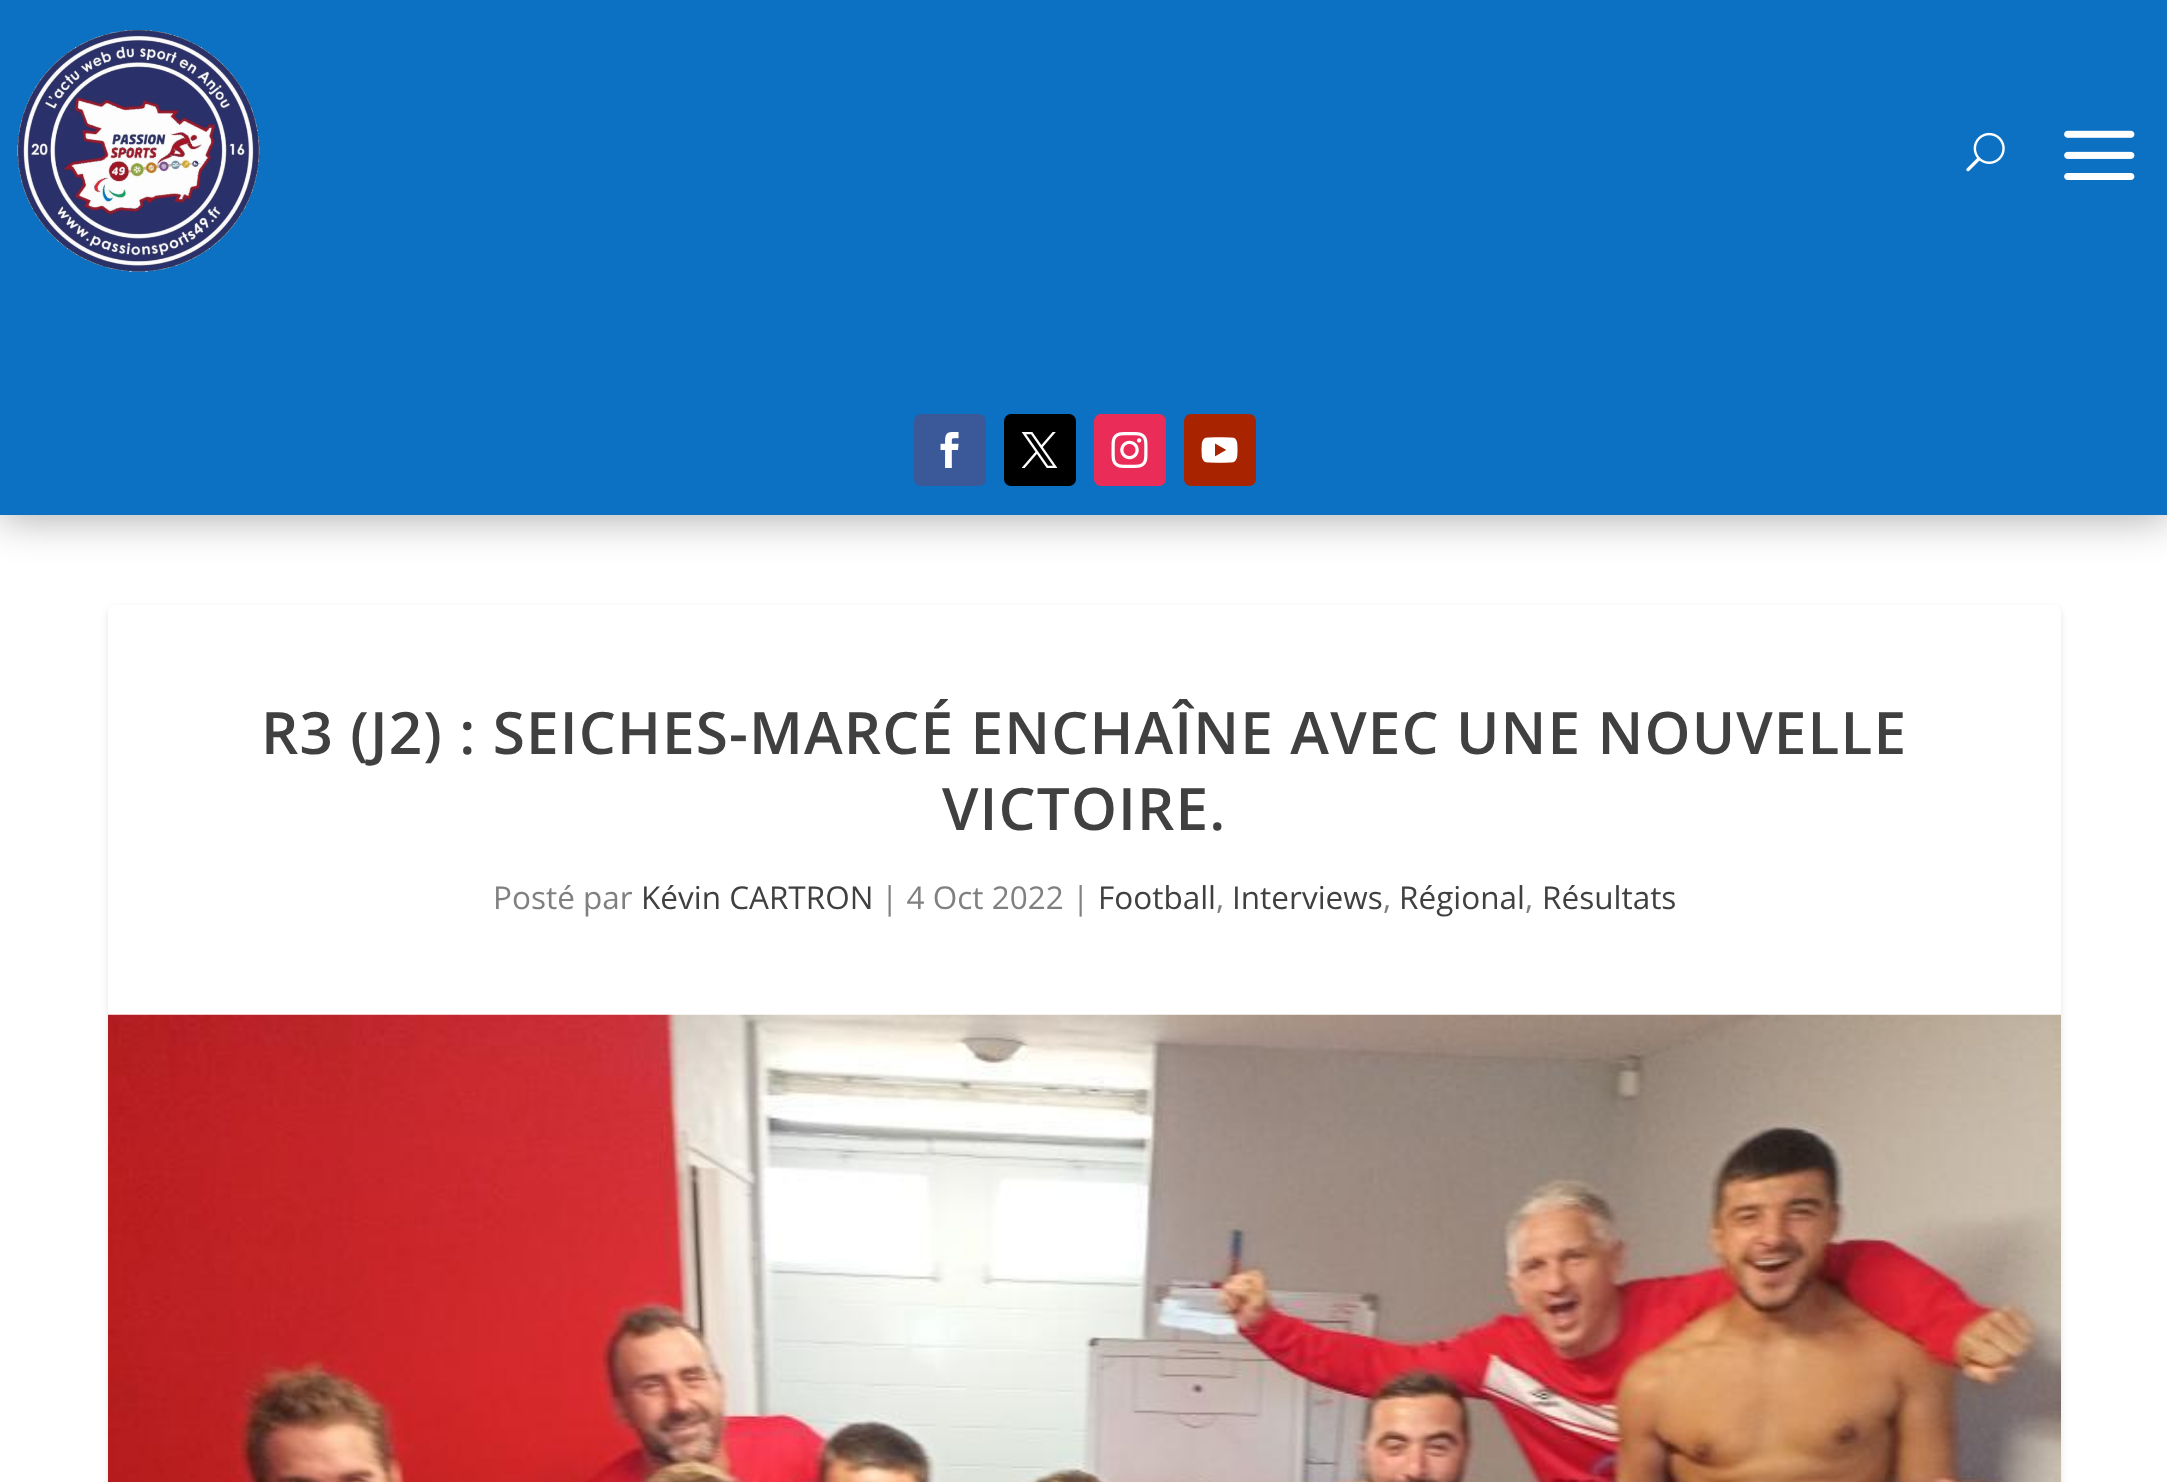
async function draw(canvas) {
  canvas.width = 2167
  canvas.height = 1482
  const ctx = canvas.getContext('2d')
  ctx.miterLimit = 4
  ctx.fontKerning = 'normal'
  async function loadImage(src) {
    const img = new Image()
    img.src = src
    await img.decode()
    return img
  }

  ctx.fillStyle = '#fff'
  ctx.fillRect(0, 0, 2167, 1482)
  ctx.fillStyle = '#0000004d'
  ctx.filter = 'blur(20px)'
  ctx.beginPath()
  ctx.rect(0, 5, 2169, 515)
  ctx.fill()
  ctx.filter = 'none'
  ctx.fillStyle = '#0c71c3'
  ctx.fillRect(0, 0, 2167, 515)
  ctx.drawImage(await loadImage('image0.png'), 17, 30, 243, 242)
  ctx.drawImage(await loadImage('image1.png'), 1966, 132, 39, 40)
  ctx.drawImage(await loadImage('image2.png'), 2064, 130, 71, 50)
  ctx.fillStyle = '#3b5998'
  ctx.beginPath()
  ctx.roundRect(914, 414, 72, 72, 7)
  ctx.fill()
  ctx.drawImage(await loadImage('image3.png'), 940, 432, 19, 36)
  ctx.fillStyle = '#000'
  ctx.beginPath()
  ctx.roundRect(1004, 414, 72, 72, 7)
  ctx.fill()
  ctx.drawImage(await loadImage('image4.png'), 1021, 432, 37, 36)
  ctx.fillStyle = '#ea2c59'
  ctx.beginPath()
  ctx.roundRect(1094, 414, 72, 72, 7)
  ctx.fill()
  ctx.drawImage(await loadImage('image5.png'), 1111, 432, 37, 36)
  ctx.fillStyle = '#a82400'
  ctx.beginPath()
  ctx.roundRect(1184, 414, 72, 72, 7)
  ctx.fill()
  ctx.drawImage(await loadImage('image6.png'), 1201, 437, 37, 26)
  ctx.fillStyle = '#0000001a'
  ctx.filter = 'blur(3.5px)'
  ctx.beginPath()
  ctx.roundRect(108, 608, 1953, 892, 7)
  ctx.fill()
  ctx.filter = 'none'
  ctx.fillStyle = '#fff'
  ctx.beginPath()
  ctx.roundRect(108, 605, 1953, 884, 7)
  ctx.fill()
  ctx.letterSpacing = '1.12px'
  ctx.font = '600 58.5px Open Sans'
  ctx.fillStyle = '#404040'
  ctx.fillText('R3 (J2) : SEICHES-MARCÉ ENCHAÎNE AVEC UNE NOUVELLE', 261, 754)
  ctx.fillText('VICTOIRE.', 942, 830)
  ctx.letterSpacing = '0px'
  ctx.font = '31.5px Open Sans'
  ctx.fillStyle = '#808080'
  ctx.fillText('Posté par', 493, 909)
  ctx.fillStyle = '#404040'
  ctx.fillText('Kévin CARTRON', 641, 909)
  ctx.fillStyle = '#808080'
  ctx.fillText('| 4 Oct 2022 |', 881, 909)
  ctx.fillStyle = '#404040'
  ctx.fillText('Football', 1098, 909)
  ctx.fillStyle = '#808080'
  ctx.fillText(',', 1216, 909)
  ctx.fillStyle = '#404040'
  ctx.fillText('Interviews', 1232, 909)
  ctx.fillStyle = '#808080'
  ctx.fillText(',', 1383, 909)
  ctx.fillStyle = '#404040'
  ctx.fillText('Régional', 1399, 909)
  ctx.fillStyle = '#808080'
  ctx.fillText(',', 1525, 909)
  ctx.fillStyle = '#404040'
  ctx.fillText('Résultats', 1542, 909)
  ctx.drawImage(await loadImage('image7.png'), 108, 1014, 1953, 468)
}

draw(document.querySelector('canvas'))
